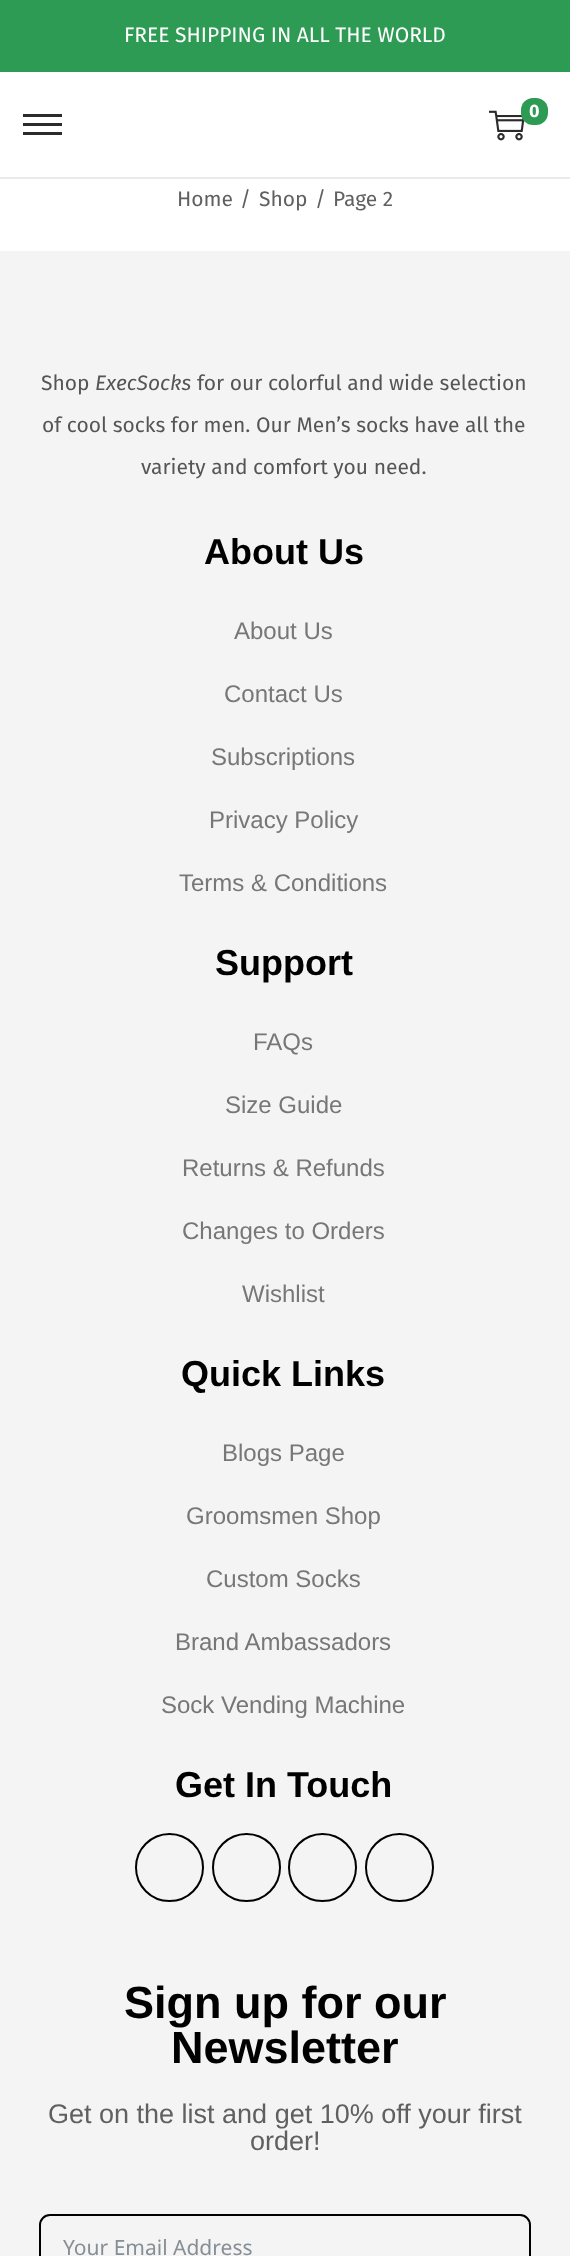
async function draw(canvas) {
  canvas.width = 570
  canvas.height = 2256
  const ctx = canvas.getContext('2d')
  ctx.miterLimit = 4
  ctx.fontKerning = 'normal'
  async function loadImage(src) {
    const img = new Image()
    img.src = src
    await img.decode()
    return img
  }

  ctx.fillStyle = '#fff'
  ctx.fillRect(0, 0, 570, 2256)
  ctx.fillStyle = '#2e9b54'
  ctx.fillRect(0, 0, 570, 72)
  ctx.font = '21px Fira Sans'
  ctx.fillStyle = '#fff'
  ctx.fillText('FREE SHIPPING IN ALL THE WORLD', 124, 42)
  ctx.fillStyle = '#eaeaea'
  ctx.fillRect(0, 177, 570, 2)
  ctx.drawImage(await loadImage('image0.png'), 489, 110, 36, 31)
  ctx.fillStyle = '#2e9b54'
  ctx.beginPath()
  ctx.roundRect(521, 98, 27, 27, 12)
  ctx.fill()
  ctx.font = 'bold 18px Fira Sans'
  ctx.fillStyle = '#fff'
  ctx.fillText('0', 529, 117)
  ctx.fillStyle = '#2b2b2b'
  ctx.fillRect(23, 123, 39, 3)
  ctx.fillRect(23, 114, 39, 3)
  ctx.fillRect(23, 132, 39, 3)
  ctx.font = '21px Fira Sans'
  ctx.fillStyle = '#606060'
  ctx.fillText('Home', 177, 206)
  ctx.fillText('/', 240, 206)
  ctx.fillText('Shop', 259, 206)
  ctx.fillText('/', 315, 206)
  ctx.fillText('Page 2', 333, 206)
  ctx.fillStyle = '#f4f4f4'
  ctx.fillRect(0, 251, 570, 2005)
  ctx.fillStyle = '#555'
  ctx.fillText('Shop', 41, 390)
  ctx.font = 'italic 21px Fira Sans'
  ctx.fillText('ExecSocks', 95, 390)
  ctx.font = '21px Fira Sans'
  ctx.fillText('for our colorful and wide selection', 197, 390)
  ctx.fillText('of cool socks for men. Our Men’s socks have all the', 42, 432)
  ctx.fillText('variety and comfort you need.', 141, 474)
  ctx.font = 'bold 36px Liberation Sans'
  ctx.fillStyle = '#000'
  ctx.fillText('About Us', 204, 564)
  ctx.font = '24px Liberation Sans'
  ctx.fillStyle = '#777'
  ctx.fillText('About Us', 234, 639)
  ctx.fillText('Contact Us', 224, 702)
  ctx.fillText('Subscriptions', 211, 765)
  ctx.fillText('Privacy Policy', 209, 828)
  ctx.fillText('Terms & Conditions', 179, 891)
  ctx.font = 'bold 36px Liberation Sans'
  ctx.fillStyle = '#000'
  ctx.fillText('Support', 215, 975)
  ctx.font = '24px Liberation Sans'
  ctx.fillStyle = '#777'
  ctx.fillText('FAQs', 253, 1050)
  ctx.fillText('Size Guide', 225, 1113)
  ctx.fillText('Returns & Refunds', 182, 1176)
  ctx.fillText('Changes to Orders', 182, 1239)
  ctx.fillText('Wishlist', 242, 1302)
  ctx.font = 'bold 36px Liberation Sans'
  ctx.fillStyle = '#000'
  ctx.fillText('Quick Links', 181, 1386)
  ctx.font = '24px Liberation Sans'
  ctx.fillStyle = '#777'
  ctx.fillText('Blogs Page', 222, 1461)
  ctx.fillText('Groomsmen Shop', 186, 1524)
  ctx.fillText('Custom Socks', 206, 1587)
  ctx.fillText('Brand Ambassadors', 175, 1650)
  ctx.fillText('Sock Vending Machine', 161, 1713)
  ctx.font = 'bold 36px Liberation Sans'
  ctx.fillStyle = '#000'
  ctx.fillText('Get In Touch', 175, 1797)
  ctx.beginPath()
  ctx.arc(169.5, 1867.5, 33.5, 0, 2 * Math.PI)
  ctx.strokeStyle = '#000'
  ctx.lineWidth = 2
  ctx.stroke()
  ctx.beginPath()
  ctx.arc(246.5, 1867.5, 33.5, 0, 2 * Math.PI)
  ctx.stroke()
  ctx.beginPath()
  ctx.arc(322.5, 1867.5, 33.5, 0, 2 * Math.PI)
  ctx.stroke()
  ctx.beginPath()
  ctx.arc(399.5, 1867.5, 33.5, 0, 2 * Math.PI)
  ctx.stroke()
  ctx.font = 'bold 45px Liberation Sans'
  ctx.fillText('Sign up for our', 124, 2018)
  ctx.fillText('Newsletter', 171, 2063)
  ctx.font = '27px Liberation Sans'
  ctx.fillStyle = '#606060'
  ctx.fillText('Get on the list and get 10% off your first', 48, 2123)
  ctx.fillText('order!', 250, 2150)
  ctx.beginPath()
  ctx.roundRect(40, 2215, 490, 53, 10)
  ctx.stroke()
  ctx.font = '21px Noto Sans'
  ctx.fillStyle = '#868e96'
  ctx.fillText('Your Email Address', 63, 2255)
}

draw(document.querySelector('canvas'))
